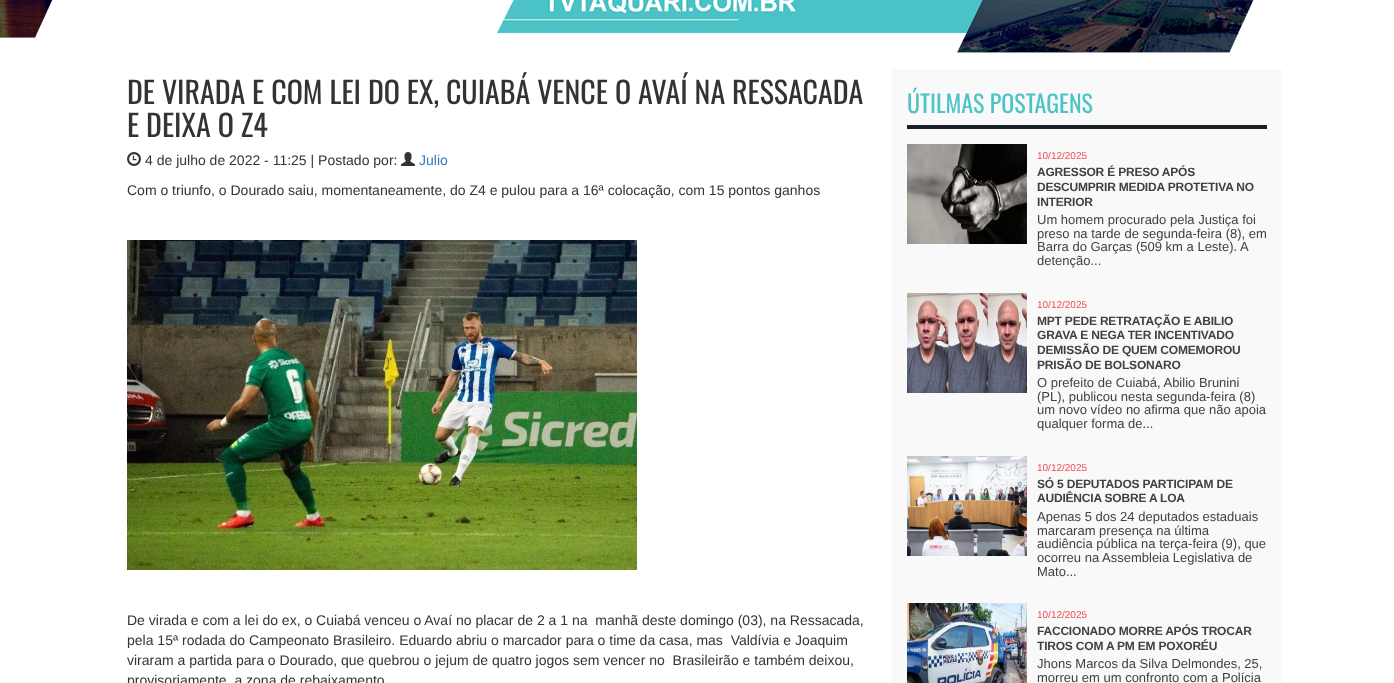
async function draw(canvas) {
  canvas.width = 1394
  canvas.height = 683
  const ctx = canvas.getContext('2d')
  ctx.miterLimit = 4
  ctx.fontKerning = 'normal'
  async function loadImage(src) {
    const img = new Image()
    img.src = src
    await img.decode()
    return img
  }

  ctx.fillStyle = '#fff'
  ctx.fillRect(0, 0, 1394, 683)
  ctx.drawImage(await loadImage('image0.png'), 0, 0, 1254, 53)
  ctx.font = '30px Oswald'
  ctx.fillStyle = '#333'
  ctx.fillText('DE VIRADA E COM LEI DO EX, CUIABÁ VENCE O AVAÍ NA RESSACADA', 127, 104)
  ctx.fillText('E DEIXA O Z4', 127, 137)
  ctx.drawImage(await loadImage('image1.png'), 127, 152, 14, 14)
  ctx.font = '14px Liberation Sans'
  ctx.fillText('4 de julho de 2022 - 11:25 | Postado por:', 145, 165)
  ctx.drawImage(await loadImage('image2.png'), 401, 152, 14, 14)
  ctx.fillStyle = '#337ab7'
  ctx.fillText('Julio', 419, 165)
  ctx.fillStyle = '#333'
  ctx.fillText('Com o triunfo, o Dourado saiu, momentaneamente, do Z4 e pulou para a 16ª colocação, com 15 pontos ganhos', 127, 195)
  ctx.drawImage(await loadImage('image3.png'), 127, 240, 510, 330)
  ctx.fillText('De virada e com a lei do ex, o Cuiabá venceu o Avaí no placar de 2 a 1 na  manhã deste domingo (03), na Ressacada,', 127, 625)
  ctx.fillText('pela 15ª rodada do Campeonato Brasileiro. Eduardo abriu o marcador para o time da casa, mas  Valdívia e Joaquim', 127, 645)
  ctx.fillText('viraram a partida para o Dourado, que quebrou o jejum de quatro jogos sem vencer no  Brasileirão e também deixou,', 127, 665)
  ctx.fillText('provisoriamente, a zona de rebaixamento', 127, 685)
  ctx.fillStyle = '#f9f9f9'
  ctx.fillRect(892, 69, 390, 614)
  ctx.fillStyle = '#1b2026'
  ctx.fillRect(907, 125, 360, 4)
  ctx.font = '24px Oswald'
  ctx.fillStyle = '#4cc3c6'
  ctx.fillText('ÚTILMAS POSTAGENS', 907, 113)
  ctx.drawImage(await loadImage('image4.png'), 907, 144, 120, 100)
  ctx.font = '10px Liberation Sans'
  ctx.fillStyle = '#f04b51'
  ctx.fillText('10/12/2025', 1037, 159)
  ctx.letterSpacing = '-0.2px'
  ctx.font = 'bold 12px Liberation Sans'
  ctx.fillStyle = '#414042'
  ctx.fillText('AGRESSOR É PRESO APÓS', 1037, 176)
  ctx.fillText('DESCUMPRIR MEDIDA PROTETIVA NO', 1037, 191)
  ctx.fillText('INTERIOR', 1037, 206)
  ctx.letterSpacing = '0px'
  ctx.font = '13px Liberation Sans'
  ctx.fillText('Um homem procurado pela Justiça foi', 1037, 224)
  ctx.fillText('preso na tarde de segunda-feira (8), em', 1037, 238)
  ctx.fillText('Barra do Garças (509 km a Leste). A', 1037, 251)
  ctx.fillText('detenção...', 1037, 265)
  ctx.drawImage(await loadImage('image5.png'), 907, 293, 120, 100)
  ctx.font = '10px Liberation Sans'
  ctx.fillStyle = '#f04b51'
  ctx.fillText('10/12/2025', 1037, 308)
  ctx.letterSpacing = '-0.2px'
  ctx.font = 'bold 12px Liberation Sans'
  ctx.fillStyle = '#414042'
  ctx.fillText('MPT PEDE RETRATAÇÃO E ABILIO', 1037, 325)
  ctx.fillText('GRAVA E NEGA TER INCENTIVADO', 1037, 339)
  ctx.fillText('DEMISSÃO DE QUEM COMEMOROU', 1037, 354)
  ctx.fillText('PRISÃO DE BOLSONARO', 1037, 369)
  ctx.letterSpacing = '0px'
  ctx.font = '13px Liberation Sans'
  ctx.fillText('O prefeito de Cuiabá, Abilio Brunini', 1037, 387)
  ctx.fillText('(PL), publicou nesta segunda-feira (8)', 1037, 401)
  ctx.fillText('um novo vídeo no afirma que não apoia', 1037, 414)
  ctx.fillText('qualquer forma de...', 1037, 428)
  ctx.drawImage(await loadImage('image6.png'), 907, 456, 120, 100)
  ctx.font = '10px Liberation Sans'
  ctx.fillStyle = '#f04b51'
  ctx.fillText('10/12/2025', 1037, 471)
  ctx.letterSpacing = '-0.2px'
  ctx.font = 'bold 12px Liberation Sans'
  ctx.fillStyle = '#414042'
  ctx.fillText('SÓ 5 DEPUTADOS PARTICIPAM DE', 1037, 488)
  ctx.fillText('AUDIÊNCIA SOBRE A LOA', 1037, 502)
  ctx.letterSpacing = '0px'
  ctx.font = '13px Liberation Sans'
  ctx.fillText('Apenas 5 dos 24 deputados estaduais', 1037, 521)
  ctx.fillText('marcaram presença na última', 1037, 535)
  ctx.fillText('audiência pública na terça-feira (9), que', 1037, 548)
  ctx.fillText('ocorreu na Assembleia Legislativa de', 1037, 562)
  ctx.fillText('Mato...', 1037, 576)
  ctx.drawImage(await loadImage('image7.png'), 907, 603, 120, 80)
  ctx.font = '10px Liberation Sans'
  ctx.fillStyle = '#f04b51'
  ctx.fillText('10/12/2025', 1037, 618)
  ctx.letterSpacing = '-0.2px'
  ctx.font = 'bold 12px Liberation Sans'
  ctx.fillStyle = '#414042'
  ctx.fillText('FACCIONADO MORRE APÓS TROCAR', 1037, 635)
  ctx.fillText('TIROS COM A PM EM POXORÉU', 1037, 650)
  ctx.letterSpacing = '0px'
  ctx.font = '13px Liberation Sans'
  ctx.fillText('Jhons Marcos da Silva Delmondes, 25,', 1037, 668)
  ctx.fillText('morreu em um confronto com a Polícia', 1037, 682)
}

draw(document.querySelector('canvas'))
